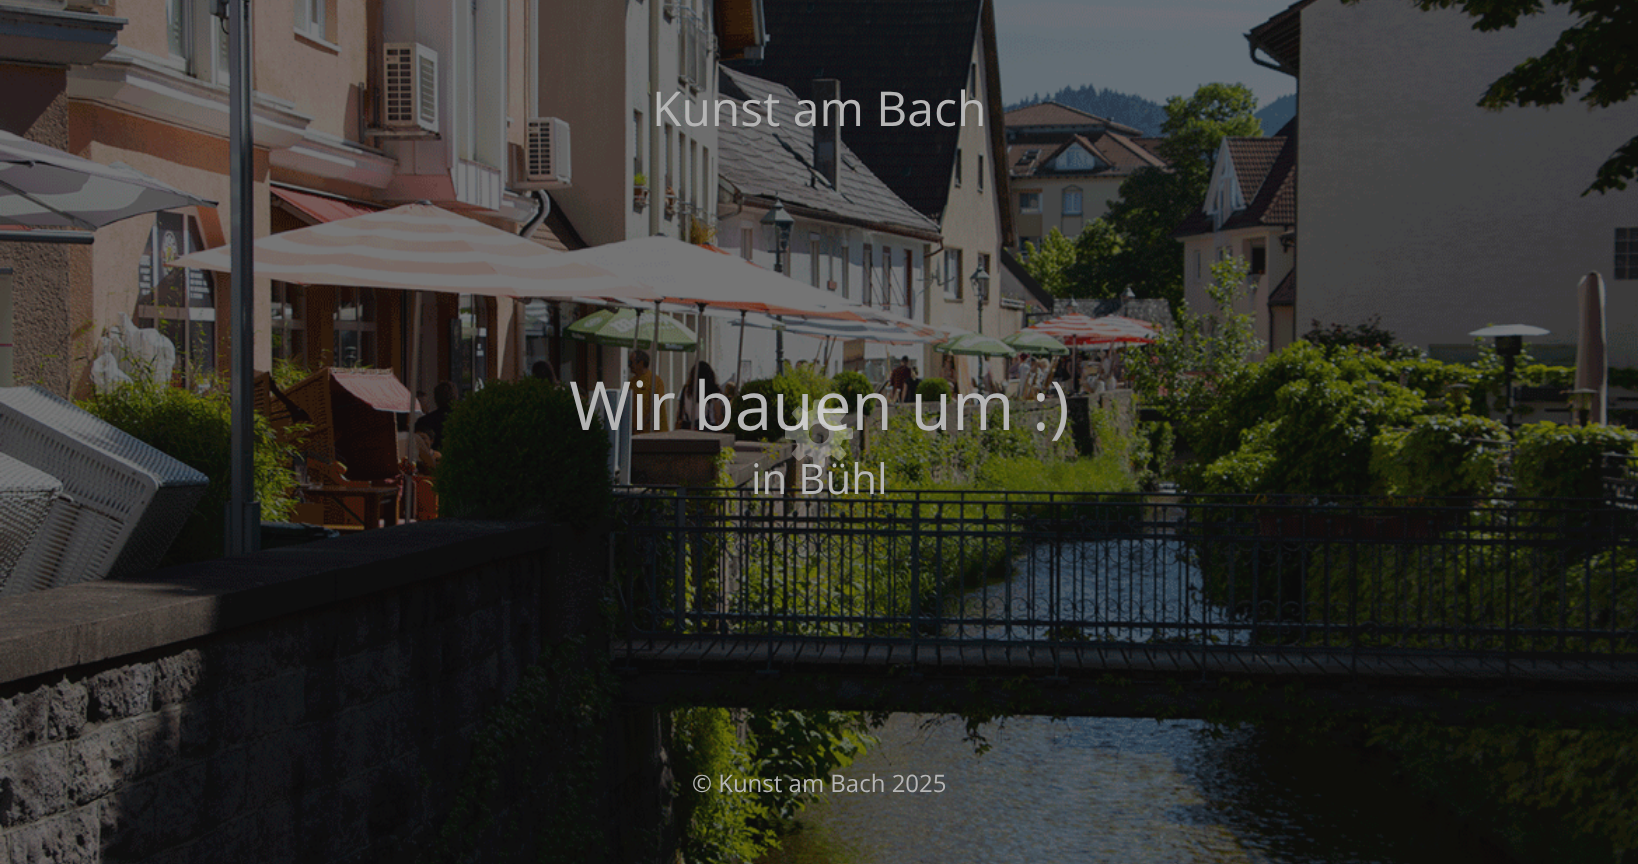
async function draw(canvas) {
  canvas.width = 1638
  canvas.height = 864
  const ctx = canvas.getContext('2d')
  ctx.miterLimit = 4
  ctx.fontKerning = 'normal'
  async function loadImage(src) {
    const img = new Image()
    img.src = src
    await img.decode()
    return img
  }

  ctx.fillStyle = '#fff'
  ctx.fillRect(0, 0, 1638, 864)
  ctx.drawImage(await loadImage('image0.png'), 0, 0, 1638, 864)
  ctx.font = '48px Open Sans'
  ctx.fillStyle = '#b5b5b5'
  ctx.fillText('Kunst am Bach', 652, 126)
  ctx.font = '67.5px Open Sans'
  ctx.fillText('Wir bauen um :)', 569, 430)
  ctx.font = '42px Open Sans'
  ctx.fillText('in Bühl', 751, 494)
  ctx.drawImage(await loadImage('image1.png'), 785, 399, 68, 69)
  ctx.font = '24px Open Sans'
  ctx.fillText('© Kunst am Bach 2025', 692, 792)
}

draw(document.querySelector('canvas'))
